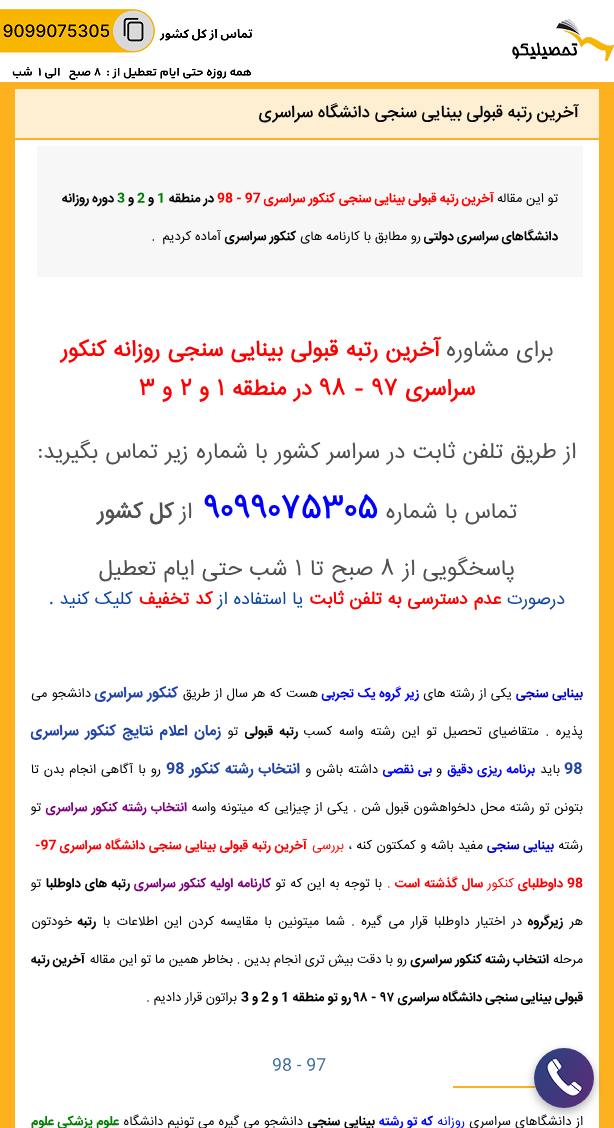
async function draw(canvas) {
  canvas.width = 614
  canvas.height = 1128
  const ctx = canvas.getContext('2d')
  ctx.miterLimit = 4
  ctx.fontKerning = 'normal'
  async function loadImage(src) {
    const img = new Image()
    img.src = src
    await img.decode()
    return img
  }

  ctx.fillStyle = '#fdb11e'
  ctx.fillRect(0, 0, 614, 1128)
  ctx.fillStyle = '#fff'
  ctx.fillRect(0, 0, 614, 82)
  ctx.drawImage(await loadImage('image0.png'), 512, 19, 102, 42)
  ctx.drawImage(await loadImage('image1.png'), 0, 9, 253, 71)
  ctx.fillStyle = '#ffefd2'
  ctx.fillRect(15, 89, 584, 49)
  ctx.direction = 'rtl'
  ctx.font = '500 17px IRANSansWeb'
  ctx.fillStyle = '#000'
  ctx.fillText('آخرین رتبه قبولی بینایی سنجی دانشگاه سراسری', 579, 117)
  ctx.fillStyle = '#fff'
  ctx.fillRect(15, 140, 584, 988)
  ctx.fillStyle = '#f7f7f7'
  ctx.fillRect(37, 146, 546, 131)
  ctx.font = '13px IRANSansWeb'
  ctx.fillStyle = '#000'
  ctx.fillText('تو این مقاله', 558, 202)
  ctx.font = 'bold 13px IRANSansWeb'
  ctx.fillStyle = '#f00'
  ctx.fillText('آخرین رتبه قبولی بینایی سنجی', 494, 202)
  ctx.fillText('کنکور سراسری', 335, 202)
  ctx.direction = 'ltr'
  ctx.fillText('98 - 97', 217, 202)
  ctx.direction = 'rtl'
  ctx.fillStyle = '#000'
  ctx.fillText('در منطقه', 214, 202)
  ctx.direction = 'ltr'
  ctx.fillStyle = '#008000'
  ctx.fillText('1', 157, 202)
  ctx.direction = 'rtl'
  ctx.fillStyle = '#000'
  ctx.fillText('و', 154, 202)
  ctx.direction = 'ltr'
  ctx.fillStyle = '#008000'
  ctx.fillText('2', 137, 202)
  ctx.direction = 'rtl'
  ctx.fillStyle = '#000'
  ctx.fillText('و', 134, 202)
  ctx.direction = 'ltr'
  ctx.fillStyle = '#008000'
  ctx.fillText('3', 117, 202)
  ctx.direction = 'rtl'
  ctx.fillStyle = '#000'
  ctx.fillText('دوره روزانه', 114, 202)
  ctx.fillText('دانشگاهای سراسری دولتی', 558, 240)
  ctx.font = '13px IRANSansWeb'
  ctx.fillText('رو مطابق با کارنامه های', 421, 240)
  ctx.font = 'bold 13px IRANSansWeb'
  ctx.fillText('کنکور سراسری', 296, 240)
  ctx.font = '13px IRANSansWeb'
  ctx.fillText('آماده کردیم  .', 221, 240)
  ctx.font = '20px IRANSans'
  ctx.fillStyle = '#505050'
  ctx.fillText('برای مشاوره', 553, 356)
  ctx.font = 'bold 20px IRANSans'
  ctx.fillStyle = '#f00'
  ctx.fillText('آخرین', 439, 356)
  ctx.fillText('رتبه قبولی بینایی سنجی روزانه کنکور', 378, 356)
  ctx.fillText('سراسری', 475, 395)
  ctx.direction = 'ltr'
  ctx.fillText('98 - 97', 319, 395)
  ctx.direction = 'rtl'
  ctx.fillText('در منطقه', 312, 395)
  ctx.direction = 'ltr'
  ctx.fillText('1', 217, 395)
  ctx.direction = 'rtl'
  ctx.fillText('و', 209, 395)
  ctx.direction = 'ltr'
  ctx.fillText('2', 180, 395)
  ctx.direction = 'rtl'
  ctx.fillText('و', 172, 395)
  ctx.direction = 'ltr'
  ctx.fillText('3', 139, 395)
  ctx.direction = 'rtl'
  ctx.font = '20px IRANSans'
  ctx.fillStyle = '#505050'
  ctx.fillText('از طریق تلفن ثابت در سراسر کشور با شماره', 576, 458)
  ctx.fillText('زیر تماس بگیرید:', 188, 458)
  ctx.fillText('تماس با شماره', 517, 518)
  ctx.direction = 'ltr'
  ctx.font = 'bold 28px IRANSans'
  ctx.fillStyle = '#00f'
  ctx.fillText('۹۰۹۹۰۷۵۳۰۵', 203, 518)
  ctx.direction = 'rtl'
  ctx.font = '20px IRANSans'
  ctx.fillStyle = '#505050'
  ctx.fillText('از', 192, 518)
  ctx.font = 'bold 20px IRANSans'
  ctx.fillText('کل کشور', 173, 518)
  ctx.font = '20px IRANSans'
  ctx.fillText('پاسخگویی از', 515, 575)
  ctx.direction = 'ltr'
  ctx.fillText('۸', 380, 575)
  ctx.direction = 'rtl'
  ctx.fillText('صبح تا', 373, 575)
  ctx.direction = 'ltr'
  ctx.fillText('۱', 295, 575)
  ctx.direction = 'rtl'
  ctx.fillText('شب حتی ایام تعطیل', 287, 575)
  ctx.font = '16px IRANSans'
  ctx.fillStyle = '#0d47a1'
  ctx.fillText('درصورت', 565, 604)
  ctx.font = 'bold 16px IRANSans'
  ctx.fillStyle = '#f00'
  ctx.fillText('عدم دسترسی به تلفن ثابت', 501, 604)
  ctx.font = '16px IRANSans'
  ctx.fillStyle = '#0d47a1'
  ctx.fillText('یا استفاده از', 303, 604)
  ctx.font = 'bold 16px IRANSans'
  ctx.fillStyle = '#f00'
  ctx.fillText('کد تخفیف', 212, 604)
  ctx.font = '16px IRANSans'
  ctx.fillStyle = '#0d47a1'
  ctx.fillText('کلیک کنید .', 132, 604)
  ctx.wordSpacing = '0.75px'
  ctx.font = 'bold 13px IRANSansWeb'
  ctx.fillStyle = '#0000cd'
  ctx.fillText('بینایی سنجی', 583, 697)
  ctx.font = '13px IRANSansWeb'
  ctx.fillStyle = '#000'
  ctx.fillText('یکی از رشته های', 512, 697)
  ctx.font = 'bold 13px IRANSansWeb'
  ctx.fillStyle = '#00f'
  ctx.fillText('زیر گروه یک تجربی', 419, 697)
  ctx.font = '13px IRANSansWeb'
  ctx.fillStyle = '#000'
  ctx.fillText('هست که هر سال از طریق', 318, 697)
  ctx.wordSpacing = '1px'
  ctx.font = 'bold 15px IRANSansWeb'
  ctx.fillStyle = '#2144a6'
  ctx.fillText('کنکور سراسری', 178, 697)
  ctx.wordSpacing = '0.75px'
  ctx.font = '13px IRANSansWeb'
  ctx.fillStyle = '#000'
  ctx.fillText('دانشجو می', 91, 697)
  ctx.wordSpacing = '3px'
  ctx.fillText('پذیره . متقاضیای تحصیل تو این رشته واسه کسب', 583, 735)
  ctx.font = 'bold 13px IRANSansWeb'
  ctx.fillText('رتبه قبولی', 298, 735)
  ctx.wordSpacing = '0px'
  ctx.font = '13px IRANSansWeb'
  ctx.fillText('تو', 238, 735)
  ctx.wordSpacing = '3px'
  ctx.font = 'bold 15px IRANSansWeb'
  ctx.fillStyle = '#2144a6'
  ctx.fillText('زمان اعلام نتایج کنکور سراسری', 221, 735)
  ctx.wordSpacing = '0px'
  ctx.direction = 'ltr'
  ctx.fillText('98', 564, 773)
  ctx.direction = 'rtl'
  ctx.font = '13px IRANSansWeb'
  ctx.fillStyle = '#000'
  ctx.fillText('باید', 560, 773)
  ctx.wordSpacing = '1.25px'
  ctx.font = 'bold 13px IRANSansWeb'
  ctx.fillStyle = '#00f'
  ctx.fillText('برنامه ریزی دقیق', 535, 773)
  ctx.wordSpacing = '0px'
  ctx.font = '13px IRANSansWeb'
  ctx.fillStyle = '#000'
  ctx.fillText('و', 442, 773)
  ctx.wordSpacing = '1.25px'
  ctx.font = 'bold 13px IRANSansWeb'
  ctx.fillStyle = '#00f'
  ctx.fillText('بی نقصی', 432, 773)
  ctx.font = '13px IRANSansWeb'
  ctx.fillStyle = '#000'
  ctx.fillText('داشته باشن و', 378, 773)
  ctx.font = 'bold 15px IRANSansWeb'
  ctx.fillStyle = '#2144a6'
  ctx.fillText('انتخاب رشته کنکور', 300, 773)
  ctx.wordSpacing = '0px'
  ctx.direction = 'ltr'
  ctx.fillText('98', 166, 773)
  ctx.wordSpacing = '1.25px'
  ctx.direction = 'rtl'
  ctx.font = '13px IRANSansWeb'
  ctx.fillStyle = '#000'
  ctx.fillText('رو با آگاهی انجام بدن تا', 161, 773)
  ctx.wordSpacing = '1px'
  ctx.fillText('بتونن تو رشته محل دلخواهشون قبول شن . یکی از چیزایی که میتونه واسه', 583, 811)
  ctx.font = 'bold 13px IRANSansWeb'
  ctx.fillStyle = '#800080'
  ctx.fillText('انتخاب رشته کنکور سراسری', 187, 811)
  ctx.wordSpacing = '0px'
  ctx.font = '13px IRANSansWeb'
  ctx.fillStyle = '#000'
  ctx.fillText('تو', 41, 811)
  ctx.fillText('رشته', 583, 849)
  ctx.wordSpacing = '0.75px'
  ctx.font = 'bold 13px IRANSansWeb'
  ctx.fillStyle = '#0000cd'
  ctx.fillText('بینایی سنجی', 554, 849)
  ctx.font = '13px IRANSansWeb'
  ctx.fillStyle = '#000'
  ctx.fillText('مفید باشه و کمکتون کنه ،', 483, 849)
  ctx.wordSpacing = '0px'
  ctx.fillStyle = '#f00'
  ctx.fillText('بررسی', 344, 849)
  ctx.wordSpacing = '0.75px'
  ctx.font = 'bold 13px IRANSansWeb'
  ctx.fillText('آخرین رتبه قبولی', 307, 849)
  ctx.fillText('بینایی سنجی', 216, 849)
  ctx.fillText('دانشگاه سراسری', 145, 849)
  ctx.wordSpacing = '0px'
  ctx.direction = 'ltr'
  ctx.fillText('-97', 35, 849)
  ctx.fillText('98', 567, 887)
  ctx.direction = 'rtl'
  ctx.fillText('داوطلبای', 563, 887)
  ctx.font = '13px IRANSansWeb'
  ctx.fillText('کنکور', 514, 887)
  ctx.wordSpacing = '1px'
  ctx.font = 'bold 13px IRANSansWeb'
  ctx.fillText('سال گذشته است', 483, 887)
  ctx.wordSpacing = '0px'
  ctx.direction = 'ltr'
  ctx.font = '13px IRANSansWeb'
  ctx.fillText('.', 387, 887)
  ctx.wordSpacing = '1px'
  ctx.direction = 'rtl'
  ctx.fillStyle = '#000'
  ctx.fillText('با توجه به این که تو', 382, 887)
  ctx.font = 'bold 13px IRANSansWeb'
  ctx.fillStyle = '#800080'
  ctx.fillText('کارنامه اولیه کنکور سراسری', 271, 887)
  ctx.fillStyle = '#000'
  ctx.fillText('رتبه های داوطلبا', 130, 887)
  ctx.wordSpacing = '0px'
  ctx.font = '13px IRANSansWeb'
  ctx.fillText('تو', 41, 887)
  ctx.fillText('هر', 583, 925)
  ctx.font = 'bold 13px IRANSansWeb'
  ctx.fillText('زیرگروه', 563, 925)
  ctx.wordSpacing = '2.6px'
  ctx.font = '13px IRANSansWeb'
  ctx.fillText('در اختیار داوطلبا قرار می گیره . شما میتونین با مقایسه کردن این اطلاعات با', 522, 925)
  ctx.wordSpacing = '0px'
  ctx.font = 'bold 13px IRANSansWeb'
  ctx.fillText('رتبه', 96, 925)
  ctx.font = '13px IRANSansWeb'
  ctx.fillText('خودتون', 72, 925)
  ctx.fillText('مرحله', 583, 963)
  ctx.wordSpacing = '0.1px'
  ctx.font = 'bold 13px IRANSansWeb'
  ctx.fillText('انتخاب رشته کنکور سراسری', 549, 963)
  ctx.font = '13px IRANSansWeb'
  ctx.fillText('رو با دقت بیش تری انجام بدین . بخاطر همین ما تو این مقاله', 407, 963)
  ctx.wordSpacing = '0px'
  ctx.font = 'bold 13px IRANSansWeb'
  ctx.fillText('آخرین رتبه', 85, 963)
  ctx.fillText('قبولی بینایی سنجی دانشگاه سراسری', 583, 1001)
  ctx.direction = 'ltr'
  ctx.fillText('۹۸ - ۹۷', 354, 1001)
  ctx.direction = 'rtl'
  ctx.fillText('رو تو منطقه', 351, 1001)
  ctx.direction = 'ltr'
  ctx.fillText('1', 281, 1001)
  ctx.direction = 'rtl'
  ctx.fillText('و', 278, 1001)
  ctx.direction = 'ltr'
  ctx.fillText('2', 261, 1001)
  ctx.direction = 'rtl'
  ctx.fillText('و', 258, 1001)
  ctx.direction = 'ltr'
  ctx.fillText('3', 241, 1001)
  ctx.direction = 'rtl'
  ctx.font = '13px IRANSansWeb'
  ctx.fillText('براتون قرار دادیم .', 237, 1001)
  ctx.direction = 'ltr'
  ctx.font = '16.5px IRANSansWeb'
  ctx.fillStyle = '#3a6d97'
  ctx.fillText('98 - 97', 272, 1070)
  ctx.fillStyle = '#fdb11e'
  ctx.fillRect(453, 1086, 83, 2)
  ctx.wordSpacing = '0.5px'
  ctx.direction = 'rtl'
  ctx.font = '13px IRANSansWeb'
  ctx.fillStyle = '#000'
  ctx.fillText('از دانشگاهای سراسری', 583, 1125)
  ctx.wordSpacing = '0px'
  ctx.fillStyle = '#00f'
  ctx.fillText('روزانه', 465, 1125)
  ctx.wordSpacing = '0.5px'
  ctx.font = 'bold 13px IRANSansWeb'
  ctx.fillText('که تو رشته', 433, 1125)
  ctx.wordSpacing = '1px'
  ctx.fillStyle = '#000'
  ctx.fillText('بینایی سنجی', 375, 1125)
  ctx.wordSpacing = '0.5px'
  ctx.font = '13px IRANSansWeb'
  ctx.fillText('دانشجو می گیره می تونیم دانشگاه', 303, 1125)
  ctx.font = 'bold 13px IRANSansWeb'
  ctx.fillStyle = '#008000'
  ctx.fillText('علوم پزشکی علوم', 119, 1125)
  ctx.fillStyle = '#0000004d'
  ctx.filter = 'blur(5px)'
  ctx.beginPath()
  ctx.roundRect(534, 1052, 60, 60, 30)
  ctx.fill()
  ctx.filter = 'none'
  ctx.fillStyle = '#fff'
  ctx.beginPath()
  ctx.arc(564, 1078, 30, 0, 2 * Math.PI)
  ctx.fill()
  ctx.drawImage(await loadImage('image2.png'), 534, 1048, 60, 60)
}

draw(document.querySelector('canvas'))
